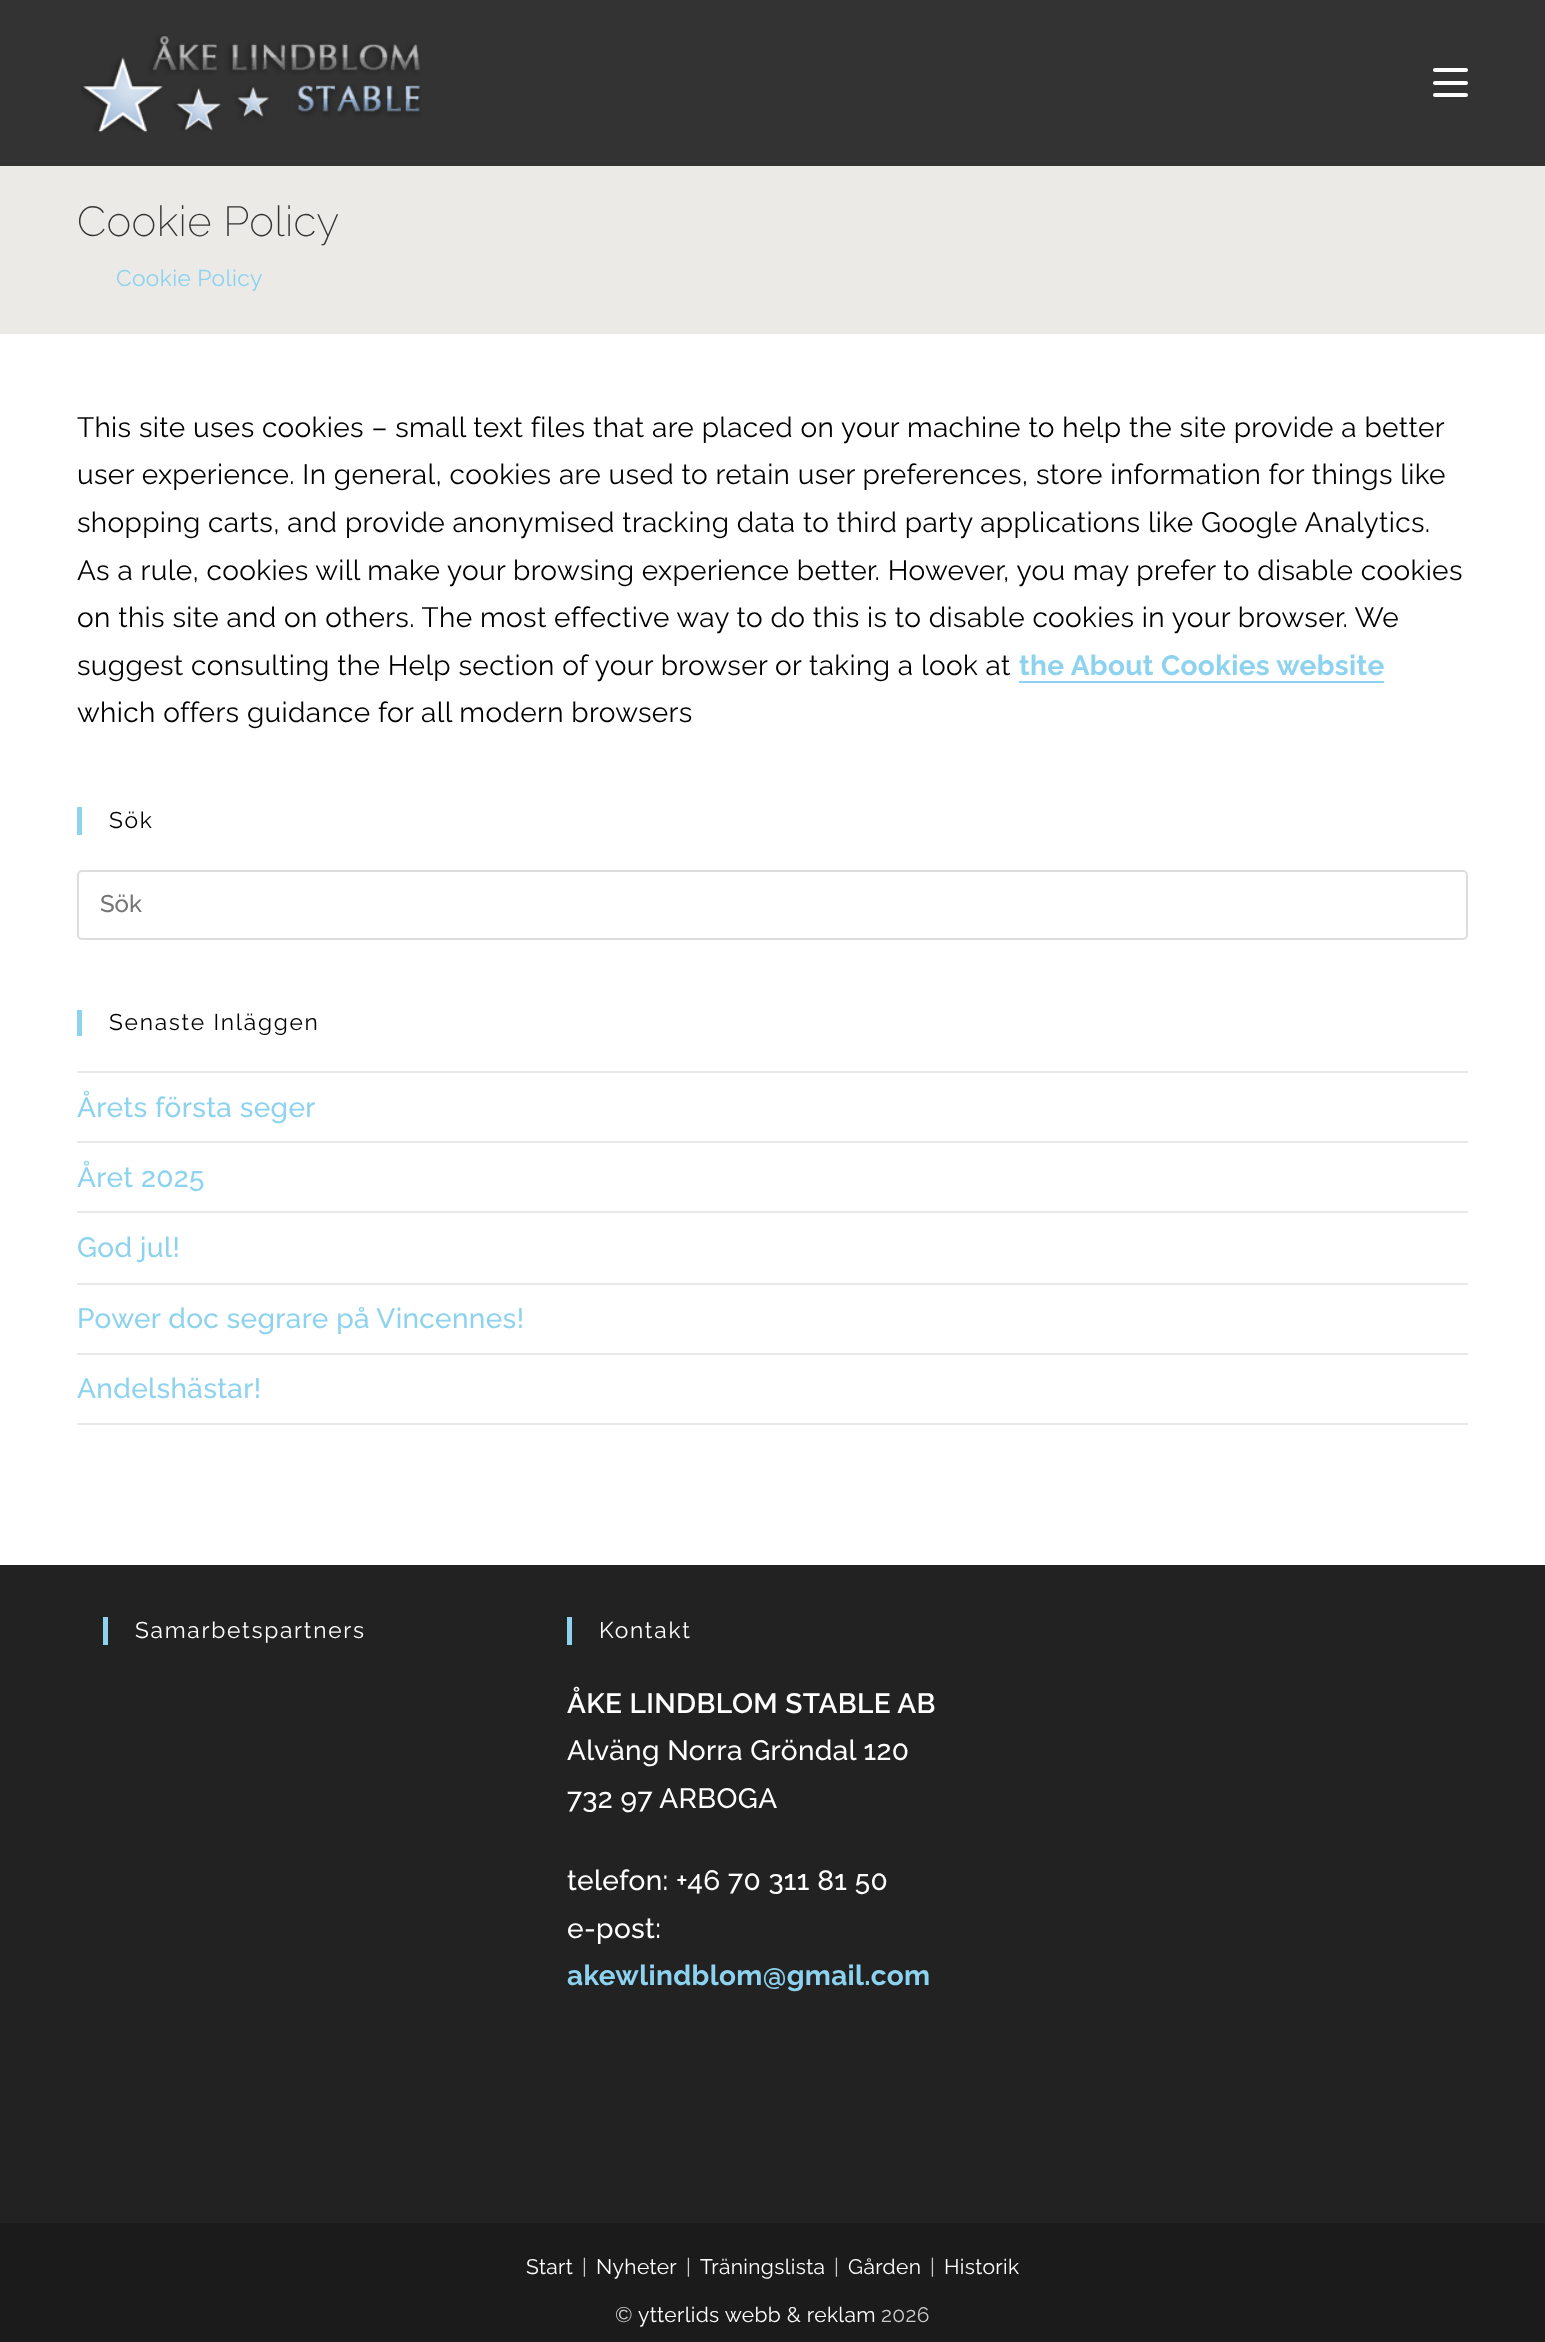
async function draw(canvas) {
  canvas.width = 1545
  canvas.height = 2342
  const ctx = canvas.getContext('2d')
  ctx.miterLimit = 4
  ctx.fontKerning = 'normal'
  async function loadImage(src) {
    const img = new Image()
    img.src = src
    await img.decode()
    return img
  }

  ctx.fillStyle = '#fff'
  ctx.fillRect(0, 0, 1545, 2342)
  ctx.fillStyle = '#333'
  ctx.fillRect(0, 0, 1545, 166)
  ctx.drawImage(await loadImage('image0.png'), 81, 35, 340, 97)
  ctx.fillStyle = '#fff'
  ctx.beginPath()
  ctx.roundRect(1433, 81, 35, 4, 2)
  ctx.fill()
  ctx.beginPath()
  ctx.roundRect(1433, 68, 35, 4, 2)
  ctx.fill()
  ctx.beginPath()
  ctx.roundRect(1433, 93, 35, 4, 2)
  ctx.fill()
  ctx.fillStyle = '#ebeae6'
  ctx.fillRect(0, 166, 1545, 168)
  ctx.letterSpacing = '0.35px'
  ctx.font = '200 42px Raleway'
  ctx.fillStyle = '#333'
  ctx.fillText('Cookie Policy', 77, 236)
  ctx.font = '100 22.75px Raleway'
  ctx.fillStyle = '#8dd2ef'
  ctx.fillText('Cookie Policy', 116, 286)
  ctx.font = '100 28px Raleway'
  ctx.fillStyle = '#000'
  ctx.fillText('This site uses cookies – small text files that are placed on your machine to help the site provide a better', 77, 437)
  ctx.fillText('user experience. In general, cookies are used to retain user preferences, store information for things like', 77, 484)
  ctx.fillText('shopping carts, and provide anonymised tracking data to third party applications like Google Analytics.', 77, 532)
  ctx.fillText('As a rule, cookies will make your browsing experience better. However, you may prefer to disable cookies', 77, 580)
  ctx.fillText('on this site and on others. The most effective way to do this is to disable cookies in your browser. We', 77, 627)
  ctx.fillText('suggest consulting the Help section of your browser or taking a look at', 77, 675)
  ctx.font = 'bold 28px Raleway'
  ctx.fillStyle = '#8dd2ef'
  ctx.fillText('the About Cookies website', 1019, 675)
  ctx.fillRect(1019, 681, 365, 2)
  ctx.font = '100 28px Raleway'
  ctx.fillStyle = '#000'
  ctx.fillText('which offers guidance for all modern browsers', 77, 722)
  ctx.fillStyle = '#8dd2ef'
  ctx.fillRect(77, 807, 5, 28)
  ctx.letterSpacing = '1.75px'
  ctx.font = '100 22.75px Raleway'
  ctx.fillStyle = '#000'
  ctx.fillText('Sök', 109, 828)
  ctx.beginPath()
  ctx.roundRect(78, 871, 1389, 68, 4)
  ctx.strokeStyle = '#ddd'
  ctx.lineWidth = 2
  ctx.stroke()
  ctx.letterSpacing = '0px'
  ctx.font = '500 24px Raleway'
  ctx.fillStyle = '#757575'
  ctx.fillText('Sök', 100, 912)
  ctx.fillStyle = '#8dd2ef'
  ctx.fillRect(77, 1010, 5, 26)
  ctx.letterSpacing = '1.75px'
  ctx.font = '100 22.75px Raleway'
  ctx.fillStyle = '#000'
  ctx.fillText('Senaste Inläggen', 109, 1030)
  ctx.fillStyle = '#e9e9e9'
  ctx.fillRect(77, 1071, 1391, 2)
  ctx.fillRect(77, 1141, 1391, 2)
  ctx.letterSpacing = '0.35px'
  ctx.font = '500 28px Raleway'
  ctx.fillStyle = '#8dd2ef'
  ctx.fillText('Årets första seger', 77, 1117)
  ctx.fillStyle = '#e9e9e9'
  ctx.fillRect(77, 1211, 1391, 2)
  ctx.fillStyle = '#8dd2ef'
  ctx.fillText('Året 2025', 77, 1187)
  ctx.fillStyle = '#e9e9e9'
  ctx.fillRect(77, 1283, 1391, 2)
  ctx.fillStyle = '#8dd2ef'
  ctx.fillText('God jul!', 77, 1257)
  ctx.fillStyle = '#e9e9e9'
  ctx.fillRect(77, 1353, 1391, 2)
  ctx.fillStyle = '#8dd2ef'
  ctx.fillText('Power doc segrare på Vincennes!', 77, 1328)
  ctx.fillStyle = '#e9e9e9'
  ctx.fillRect(77, 1423, 1391, 2)
  ctx.fillStyle = '#8dd2ef'
  ctx.fillText('Andelshästar!', 77, 1398)
  ctx.fillStyle = '#222'
  ctx.fillRect(0, 1565, 1545, 658)
  ctx.fillStyle = '#8dd2ef'
  ctx.fillRect(103, 1617, 5, 28)
  ctx.letterSpacing = '1.75px'
  ctx.font = '100 22.75px Raleway'
  ctx.fillStyle = '#fff'
  ctx.fillText('Samarbetspartners', 135, 1638)
  ctx.fillStyle = '#8dd2ef'
  ctx.fillRect(567, 1617, 5, 28)
  ctx.fillStyle = '#fff'
  ctx.fillText('Kontakt', 599, 1638)
  ctx.letterSpacing = '0.35px'
  ctx.font = '600 28px Raleway'
  ctx.fillText('ÅKE LINDBLOM STABLE AB', 567, 1713)
  ctx.font = '500 28px Raleway'
  ctx.fillText('Alväng Norra Gröndal 120', 567, 1760)
  ctx.fillText('732 97 ARBOGA', 567, 1808)
  ctx.fillText('telefon: +46 70 311 81 50', 567, 1890)
  ctx.fillText('e-post:', 567, 1938)
  ctx.font = 'bold 28px Raleway'
  ctx.fillStyle = '#8dd2ef'
  ctx.fillText('akewlindblom@gmail.com', 567, 1985)
  ctx.fillStyle = '#1b1b1b'
  ctx.fillRect(0, 2223, 1545, 119)
  ctx.font = '100 21px Raleway'
  ctx.fillStyle = '#fff'
  ctx.fillText('Start', 526, 2274)
  ctx.fillStyle = '#ccc'
  ctx.fillText('|', 582, 2274)
  ctx.fillStyle = '#fff'
  ctx.fillText('Nyheter', 596, 2274)
  ctx.fillStyle = '#ccc'
  ctx.fillText('|', 686, 2274)
  ctx.fillStyle = '#fff'
  ctx.fillText('Träningslista', 700, 2274)
  ctx.fillStyle = '#ccc'
  ctx.fillText('|', 834, 2274)
  ctx.fillStyle = '#fff'
  ctx.fillText('Gården', 848, 2274)
  ctx.fillStyle = '#ccc'
  ctx.fillText('|', 930, 2274)
  ctx.fillStyle = '#fff'
  ctx.fillText('Historik', 944, 2274)
  ctx.fillStyle = '#ccc'
  ctx.fillText('©', 615, 2322)
  ctx.fillStyle = '#fff'
  ctx.fillText('ytterlids webb & reklam', 638, 2322)
  ctx.fillStyle = '#ccc'
  ctx.fillText('2026', 881, 2322)
}

draw(document.querySelector('canvas'))
